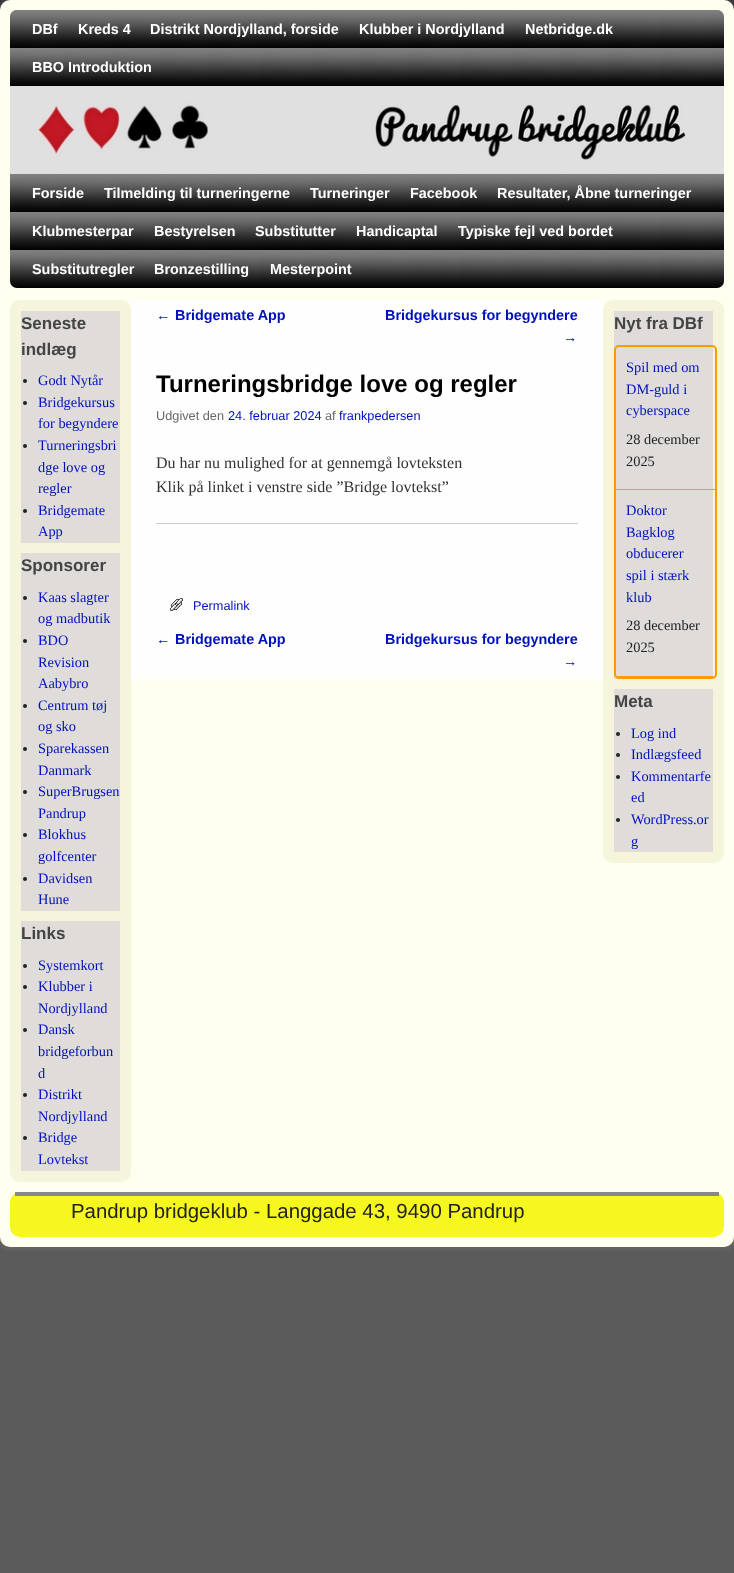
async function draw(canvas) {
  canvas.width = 734
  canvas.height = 1573
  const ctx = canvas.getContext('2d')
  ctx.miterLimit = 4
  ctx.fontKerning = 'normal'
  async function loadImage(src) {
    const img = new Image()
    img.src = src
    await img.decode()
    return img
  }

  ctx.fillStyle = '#5b5b5b'
  ctx.fillRect(0, 0, 734, 1573)
  ctx.drawImage(await loadImage('image0.png'), 0, 0, 734, 10)
  ctx.fillStyle = '#7f7f7f40'
  ctx.filter = 'blur(1.5px)'
  ctx.beginPath()
  ctx.roundRect(-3, -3, 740, 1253, 13)
  ctx.fill()
  ctx.filter = 'none'
  ctx.fillStyle = '#fffff0'
  ctx.beginPath()
  ctx.roundRect(0, 0, 734, 1247, 10)
  ctx.fill()
  ctx.fillStyle = '#000'
  ctx.beginPath()
  ctx.roundRect(10, 10, 714, 76, [7, 7, 0, 0])
  ctx.fill()
  ctx.drawImage(await loadImage('image1.png'), 10, 10, 714, 75)
  ctx.font = 'bold 14.4px Liberation Sans'
  ctx.fillStyle = '#fff'
  ctx.fillText('DBf', 32, 34)
  ctx.fillText('Kreds 4', 78, 34)
  ctx.fillText('Distrikt Nordjylland, forside', 150, 34)
  ctx.fillText('Klubber i Nordjylland', 359, 34)
  ctx.fillText('Netbridge.dk', 525, 34)
  ctx.fillText('BBO Introduktion', 32, 72)
  ctx.drawImage(await loadImage('image2.png'), 10, 86, 714, 88)
  ctx.fillStyle = '#000'
  ctx.beginPath()
  ctx.roundRect(10, 174, 714, 114, [0, 0, 7, 7])
  ctx.fill()
  ctx.drawImage(await loadImage('image3.png'), 10, 174, 714, 113)
  ctx.fillStyle = '#fff'
  ctx.fillText('Forside', 32, 198)
  ctx.fillText('Tilmelding til turneringerne', 104, 198)
  ctx.fillText('Turneringer', 310, 198)
  ctx.fillText('Facebook', 410, 198)
  ctx.fillText('Resultater, Åbne turneringer', 497, 198)
  ctx.fillText('Klubmesterpar', 32, 236)
  ctx.fillText('Bestyrelsen', 154, 236)
  ctx.fillText('Substitutter', 255, 236)
  ctx.fillText('Handicaptal', 356, 236)
  ctx.fillText('Typiske fejl ved bordet', 458, 236)
  ctx.fillText('Substitutregler', 32, 274)
  ctx.fillText('Bronzestilling', 154, 274)
  ctx.fillText('Mesterpoint', 270, 274)
  ctx.fillStyle = '#f5f5dc'
  ctx.beginPath()
  ctx.roundRect(10, 300, 121, 882, 10)
  ctx.fill()
  ctx.fillStyle = '#e0dcda'
  ctx.fillRect(21, 311, 99, 232)
  ctx.font = 'bold 17px Liberation Sans'
  ctx.fillStyle = '#444'
  ctx.fillText('Seneste', 21, 329)
  ctx.fillText('indlæg', 21, 355)
  ctx.fillStyle = '#222'
  ctx.beginPath()
  ctx.arc(25, 381, 2, 0, 2 * Math.PI)
  ctx.fill()
  ctx.font = '14.4px Liberation Serif'
  ctx.fillStyle = '#01b'
  ctx.fillText('Godt Nytår', 38, 385)
  ctx.fillStyle = '#222'
  ctx.beginPath()
  ctx.arc(25, 403, 2, 0, 2 * Math.PI)
  ctx.fill()
  ctx.fillStyle = '#01b'
  ctx.fillText('Bridgekursus', 38, 407)
  ctx.fillText('for begyndere', 38, 428)
  ctx.fillStyle = '#222'
  ctx.beginPath()
  ctx.arc(25, 446, 2, 0, 2 * Math.PI)
  ctx.fill()
  ctx.fillStyle = '#01b'
  ctx.fillText('Turneringsbri', 38, 450)
  ctx.fillText('dge love og', 38, 472)
  ctx.fillText('regler', 38, 493)
  ctx.fillStyle = '#222'
  ctx.beginPath()
  ctx.arc(25, 511, 2, 0, 2 * Math.PI)
  ctx.fill()
  ctx.fillStyle = '#01b'
  ctx.fillText('Bridgemate', 38, 515)
  ctx.fillText('App', 38, 536)
  ctx.fillStyle = '#e0dcda'
  ctx.fillRect(21, 553, 99, 358)
  ctx.font = 'bold 17px Liberation Sans'
  ctx.fillStyle = '#444'
  ctx.fillText('Sponsorer', 21, 571)
  ctx.fillStyle = '#222'
  ctx.beginPath()
  ctx.arc(25, 598, 2, 0, 2 * Math.PI)
  ctx.fill()
  ctx.font = '14.4px Liberation Serif'
  ctx.fillStyle = '#01b'
  ctx.fillText('Kaas slagter', 38, 602)
  ctx.fillText('og madbutik', 38, 623)
  ctx.fillStyle = '#222'
  ctx.beginPath()
  ctx.arc(25, 641, 2, 0, 2 * Math.PI)
  ctx.fill()
  ctx.fillStyle = '#01b'
  ctx.fillText('BDO', 38, 645)
  ctx.fillText('Revision', 38, 667)
  ctx.fillText('Aabybro', 38, 688)
  ctx.fillStyle = '#222'
  ctx.beginPath()
  ctx.arc(25, 706, 2, 0, 2 * Math.PI)
  ctx.fill()
  ctx.fillStyle = '#01b'
  ctx.fillText('Centrum tøj', 38, 710)
  ctx.fillText('og sko', 38, 731)
  ctx.fillStyle = '#222'
  ctx.beginPath()
  ctx.arc(25, 749, 2, 0, 2 * Math.PI)
  ctx.fill()
  ctx.fillStyle = '#01b'
  ctx.fillText('Sparekassen', 38, 753)
  ctx.fillText('Danmark', 38, 775)
  ctx.fillStyle = '#222'
  ctx.beginPath()
  ctx.arc(25, 792, 2, 0, 2 * Math.PI)
  ctx.fill()
  ctx.fillStyle = '#01b'
  ctx.fillText('SuperBrugsen', 38, 796)
  ctx.fillText('Pandrup', 38, 818)
  ctx.fillStyle = '#222'
  ctx.beginPath()
  ctx.arc(25, 835, 2, 0, 2 * Math.PI)
  ctx.fill()
  ctx.fillStyle = '#01b'
  ctx.fillText('Blokhus', 38, 839)
  ctx.fillText('golfcenter', 38, 861)
  ctx.fillStyle = '#222'
  ctx.beginPath()
  ctx.arc(25, 879, 2, 0, 2 * Math.PI)
  ctx.fill()
  ctx.fillStyle = '#01b'
  ctx.fillText('Davidsen', 38, 883)
  ctx.fillText('Hune', 38, 904)
  ctx.fillStyle = '#e0dcda'
  ctx.fillRect(21, 921, 99, 250)
  ctx.font = 'bold 17px Liberation Sans'
  ctx.fillStyle = '#444'
  ctx.fillText('Links', 21, 939)
  ctx.fillStyle = '#222'
  ctx.beginPath()
  ctx.arc(25, 966, 2, 0, 2 * Math.PI)
  ctx.fill()
  ctx.font = '14.4px Liberation Serif'
  ctx.fillStyle = '#01b'
  ctx.fillText('Systemkort', 38, 970)
  ctx.fillStyle = '#222'
  ctx.beginPath()
  ctx.arc(25, 987, 2, 0, 2 * Math.PI)
  ctx.fill()
  ctx.fillStyle = '#01b'
  ctx.fillText('Klubber i', 38, 991)
  ctx.fillText('Nordjylland', 38, 1013)
  ctx.fillStyle = '#222'
  ctx.beginPath()
  ctx.arc(25, 1030, 2, 0, 2 * Math.PI)
  ctx.fill()
  ctx.fillStyle = '#01b'
  ctx.fillText('Dansk', 38, 1034)
  ctx.fillText('bridgeforbun', 38, 1056)
  ctx.fillText('d', 38, 1078)
  ctx.fillStyle = '#222'
  ctx.beginPath()
  ctx.arc(25, 1095, 2, 0, 2 * Math.PI)
  ctx.fill()
  ctx.fillStyle = '#01b'
  ctx.fillText('Distrikt', 38, 1099)
  ctx.fillText('Nordjylland', 38, 1121)
  ctx.fillStyle = '#222'
  ctx.beginPath()
  ctx.arc(25, 1138, 2, 0, 2 * Math.PI)
  ctx.fill()
  ctx.fillStyle = '#01b'
  ctx.fillText('Bridge', 38, 1142)
  ctx.fillText('Lovtekst', 38, 1164)
  ctx.fillStyle = '#fefeff'
  ctx.fillRect(131, 300, 472, 379)
  ctx.font = '14.4px Liberation Sans'
  ctx.fillStyle = '#01b'
  ctx.fillText('←', 156, 320)
  ctx.font = 'bold 14.4px Liberation Sans'
  ctx.fillText('Bridgemate App', 175, 320)
  ctx.fillText('Bridgekursus for begyndere', 385, 320)
  ctx.font = '14.4px Liberation Sans'
  ctx.fillText('→', 563, 342)
  ctx.font = 'bold 24px Liberation Sans'
  ctx.fillStyle = '#000'
  ctx.fillText('Turneringsbridge love og regler', 156, 392)
  ctx.font = '12.75px Liberation Sans'
  ctx.fillStyle = '#666'
  ctx.fillText('Udgivet den', 156, 420)
  ctx.fillStyle = '#01b'
  ctx.fillText('24. februar 2024', 228, 420)
  ctx.fillStyle = '#666'
  ctx.fillText('af', 325, 420)
  ctx.fillStyle = '#01b'
  ctx.fillText('frankpedersen', 339, 420)
  ctx.font = '16px Liberation Serif'
  ctx.fillStyle = '#333'
  ctx.fillText('Du har nu mulighed for at gennemgå lovteksten', 156, 468)
  ctx.fillText('Klik på linket i venstre side ”Bridge lovtekst”', 156, 492)
  ctx.fillStyle = '#ccc'
  ctx.fillRect(156, 523, 422, 1)
  ctx.drawImage(await loadImage('image4.png'), 170, 598, 13, 13)
  ctx.font = '12.75px Liberation Sans'
  ctx.fillStyle = '#01b'
  ctx.fillText('Permalink', 193, 610)
  ctx.font = '14.4px Liberation Sans'
  ctx.fillText('←', 156, 644)
  ctx.font = 'bold 14.4px Liberation Sans'
  ctx.fillText('Bridgemate App', 175, 644)
  ctx.fillText('Bridgekursus for begyndere', 385, 644)
  ctx.font = '14.4px Liberation Sans'
  ctx.fillText('→', 563, 666)
  ctx.fillStyle = '#f5f5dc'
  ctx.beginPath()
  ctx.roundRect(603, 300, 121, 563, 10)
  ctx.fill()
  ctx.fillStyle = '#e0dcda'
  ctx.fillRect(614, 311, 99, 368)
  ctx.font = 'bold 17px Liberation Sans'
  ctx.fillStyle = '#444'
  ctx.fillText('Nyt fra DBf', 614, 329)
  ctx.beginPath()
  ctx.roundRect(615, 346, 101, 332, 4)
  ctx.strokeStyle = '#f90'
  ctx.lineWidth = 2
  ctx.stroke()
  ctx.fillStyle = '#f90'
  ctx.fillRect(616, 489, 99, 1)
  ctx.font = '14.4px Liberation Serif'
  ctx.fillStyle = '#01b'
  ctx.fillText('Spil med om', 626, 372)
  ctx.fillText('DM-guld i', 626, 394)
  ctx.fillText('cyberspace', 626, 415)
  ctx.fillStyle = '#222'
  ctx.fillText('28 december', 626, 444)
  ctx.fillText('2025', 626, 466)
  ctx.save()
  ctx.beginPath()
  ctx.roundRect(616, 347, 99, 330, 3)
  ctx.clip()
  ctx.fillStyle = '#f90'
  ctx.fillRect(616, 676, 99, 1)
  ctx.restore()
  ctx.fillStyle = '#01b'
  ctx.fillText('Doktor', 626, 515)
  ctx.fillText('Bagklog', 626, 537)
  ctx.fillText('obducerer', 626, 558)
  ctx.fillText('spil i stærk', 626, 580)
  ctx.fillText('klub', 626, 602)
  ctx.fillStyle = '#222'
  ctx.fillText('28 december', 626, 630)
  ctx.fillText('2025', 626, 652)
  ctx.fillStyle = '#e0dcda'
  ctx.fillRect(614, 689, 99, 163)
  ctx.font = 'bold 17px Liberation Sans'
  ctx.fillStyle = '#444'
  ctx.fillText('Meta', 614, 707)
  ctx.fillStyle = '#222'
  ctx.beginPath()
  ctx.arc(618, 734, 2, 0, 2 * Math.PI)
  ctx.fill()
  ctx.font = '14.4px Liberation Serif'
  ctx.fillStyle = '#01b'
  ctx.fillText('Log ind', 631, 738)
  ctx.fillStyle = '#222'
  ctx.beginPath()
  ctx.arc(618, 755, 2, 0, 2 * Math.PI)
  ctx.fill()
  ctx.fillStyle = '#01b'
  ctx.fillText('Indlægsfeed', 631, 759)
  ctx.fillStyle = '#222'
  ctx.beginPath()
  ctx.arc(618, 777, 2, 0, 2 * Math.PI)
  ctx.fill()
  ctx.fillStyle = '#01b'
  ctx.fillText('Kommentarfe', 631, 781)
  ctx.fillText('ed', 631, 802)
  ctx.fillStyle = '#222'
  ctx.beginPath()
  ctx.arc(618, 820, 2, 0, 2 * Math.PI)
  ctx.fill()
  ctx.fillStyle = '#01b'
  ctx.fillText('WordPress.or', 631, 824)
  ctx.fillText('g', 631, 846)
  ctx.fillStyle = '#f7f720'
  ctx.beginPath()
  ctx.roundRect(10, 1192, 714, 45, 10)
  ctx.fill()
  ctx.fillStyle = '#888'
  ctx.fillRect(15, 1192, 704, 4)
  ctx.font = '20.4px Liberation Sans'
  ctx.fillStyle = '#222'
  ctx.fillText('Pandrup bridgeklub - Langgade 43, 9490 Pandrup', 71, 1218)
}

draw(document.querySelector('canvas'))
